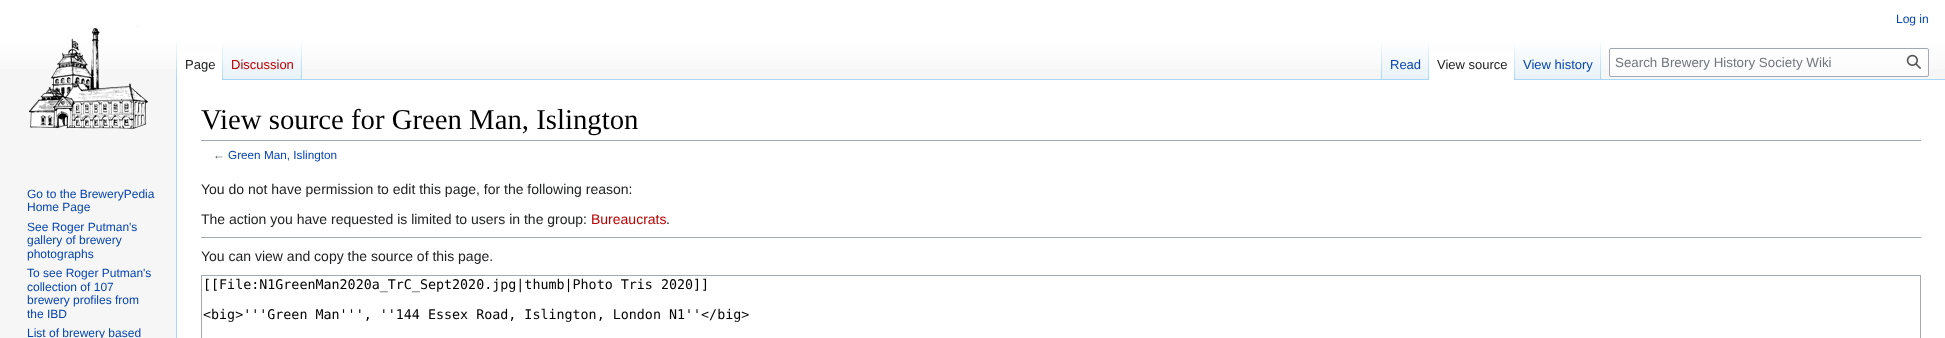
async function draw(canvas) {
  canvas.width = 1945
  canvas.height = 338
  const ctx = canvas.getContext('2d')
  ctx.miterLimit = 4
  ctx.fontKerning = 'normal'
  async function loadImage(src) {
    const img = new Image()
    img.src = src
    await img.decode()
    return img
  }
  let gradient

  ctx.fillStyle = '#f6f6f6'
  ctx.fillRect(0, 0, 1945, 338)
  gradient = ctx.createLinearGradient(973, 0, 973, 80)
  gradient.addColorStop(0.5, '#fff')
  gradient.addColorStop(1, '#f6f6f6')
  ctx.fillStyle = gradient
  ctx.fillRect(0, 0, 1945, 69)
  ctx.font = '12px Liberation Sans'
  ctx.fillStyle = '#0645ad'
  ctx.fillText('Log in', 1896, 23)
  ctx.fillStyle = '#a7d7f9'
  ctx.fillRect(176, 79, 1, 259)
  gradient = ctx.createLinearGradient(177, 40, 177, 80)
  gradient.addColorStop(0, '#a7d7f900')
  gradient.addColorStop(1, '#a7d7f9')
  ctx.fillStyle = gradient
  ctx.fillRect(176, 40, 1, 40)
  ctx.fillStyle = '#fff'
  ctx.fillRect(177, 51, 45, 29)
  gradient = ctx.createLinearGradient(223, 40, 223, 80)
  gradient.addColorStop(0, '#fff')
  gradient.addColorStop(1, '#a7d7f9')
  ctx.fillStyle = gradient
  ctx.fillRect(222, 40, 1, 40)
  ctx.font = '13px Liberation Sans'
  ctx.fillStyle = '#202122'
  ctx.fillText('Page', 185, 69)
  gradient = ctx.createLinearGradient(263, 80, 263, 40)
  gradient.addColorStop(0, '#77c1f6')
  gradient.addColorStop(0.03, '#e8f2f8')
  gradient.addColorStop(1, '#fff')
  ctx.fillStyle = gradient
  ctx.fillRect(223, 46, 79, 34)
  gradient = ctx.createLinearGradient(302, 40, 302, 80)
  gradient.addColorStop(0, '#a7d7f900')
  gradient.addColorStop(1, '#a7d7f9')
  ctx.fillStyle = gradient
  ctx.fillRect(301, 40, 1, 40)
  ctx.fillStyle = '#ba0000'
  ctx.fillText('Discussion', 231, 69)
  ctx.fillStyle = '#a7d7f9'
  ctx.fillRect(302, 79, 1643, 1)
  gradient = ctx.createLinearGradient(1382, 40, 1382, 80)
  gradient.addColorStop(0, '#a7d7f900')
  gradient.addColorStop(1, '#a7d7f9')
  ctx.fillStyle = gradient
  ctx.fillRect(1381, 40, 1, 40)
  gradient = ctx.createLinearGradient(1406, 80, 1406, 40)
  gradient.addColorStop(0, '#77c1f6')
  gradient.addColorStop(0.03, '#e8f2f8')
  gradient.addColorStop(1, '#fff')
  ctx.fillStyle = gradient
  ctx.fillRect(1382, 46, 47, 33)
  gradient = ctx.createLinearGradient(1429, 40, 1429, 80)
  gradient.addColorStop(0, '#a7d7f900')
  gradient.addColorStop(1, '#a7d7f9')
  ctx.fillStyle = gradient
  ctx.fillRect(1428, 40, 1, 40)
  ctx.fillStyle = '#0645ad'
  ctx.fillText('Read', 1390, 69)
  ctx.fillStyle = '#fff'
  ctx.fillRect(1429, 51, 85, 29)
  gradient = ctx.createLinearGradient(1515, 40, 1515, 80)
  gradient.addColorStop(0, '#fff')
  gradient.addColorStop(1, '#a7d7f9')
  ctx.fillStyle = gradient
  ctx.fillRect(1514, 40, 1, 40)
  ctx.fillStyle = '#202122'
  ctx.fillText('View source', 1437, 69)
  gradient = ctx.createLinearGradient(1558, 80, 1558, 40)
  gradient.addColorStop(0, '#77c1f6')
  gradient.addColorStop(0.03, '#e8f2f8')
  gradient.addColorStop(1, '#fff')
  ctx.fillStyle = gradient
  ctx.fillRect(1515, 46, 86, 33)
  gradient = ctx.createLinearGradient(1601, 40, 1601, 80)
  gradient.addColorStop(0, '#a7d7f900')
  gradient.addColorStop(1, '#a7d7f9')
  ctx.fillStyle = gradient
  ctx.fillRect(1600, 40, 1, 40)
  ctx.fillStyle = '#0645ad'
  ctx.fillText('View history', 1523, 69)
  ctx.fillStyle = '#ffffff80'
  ctx.beginPath()
  ctx.roundRect(1609.5, 48.5, 319, 28, 1.5)
  ctx.fill()
  ctx.strokeStyle = '#a2a9b1'
  ctx.stroke()
  ctx.font = '13.35px Liberation Sans'
  ctx.fillStyle = '#72777d'
  ctx.fillText('Search Brewery History Society Wiki', 1615, 67)
  ctx.drawImage(await loadImage('image0.png'), 1906, 54, 15, 15)
  ctx.drawImage(await loadImage('image1.png'), 29, 25, 119, 104)
  ctx.font = '12px Liberation Sans'
  ctx.fillStyle = '#0645ad'
  ctx.fillText('Go to the BreweryPedia', 27, 198)
  ctx.fillText('Home Page', 27, 211)
  ctx.fillText('See Roger Putman\'s', 27, 231)
  ctx.fillText('gallery of brewery', 27, 244)
  ctx.fillText('photographs', 27, 258)
  ctx.fillText('To see Roger Putman\'s', 27, 277)
  ctx.fillText('collection of 107', 27, 291)
  ctx.fillText('brewery profiles from', 27, 304)
  ctx.fillText('the IBD', 27, 318)
  ctx.fillText('List of brewery based', 27, 337)
  ctx.fillStyle = '#fff'
  ctx.fillRect(177, 80, 1768, 258)
  ctx.fillStyle = '#a2a9b1'
  ctx.fillRect(201, 140, 1720, 1)
  ctx.font = '28.75px Liberation Serif'
  ctx.fillStyle = '#000'
  ctx.fillText('View source for Green Man, Islington', 201, 129)
  ctx.font = '11.75px Liberation Sans'
  ctx.fillStyle = '#54595d'
  ctx.fillText('←', 213, 159)
  ctx.fillStyle = '#0645ad'
  ctx.fillText('Green Man, Islington', 228, 159)
  ctx.font = '14px Liberation Sans'
  ctx.fillStyle = '#202122'
  ctx.fillText('You do not have permission to edit this page, for the following reason:', 201, 194)
  ctx.fillText('The action you have requested is limited to users in the group:', 201, 224)
  ctx.fillStyle = '#ba0000'
  ctx.fillText('Bureaucrats', 591, 224)
  ctx.fillStyle = '#202122'
  ctx.fillText('.', 666, 224)
  ctx.fillStyle = '#a2a9b1'
  ctx.fillRect(201, 237, 1720, 1)
  ctx.fillStyle = '#202122'
  ctx.fillText('You can view and copy the source of this page.', 201, 261)
  ctx.strokeRect(201.5, 275.5, 1719, 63)
  ctx.font = '13.35px DejaVu Sans Mono'
  ctx.fillStyle = '#000'
  ctx.fillText('[[File:N1GreenMan2020a_TrC_Sept2020.jpg|thumb|Photo Tris 2020]]', 203, 289)
  ctx.fillText('<big>\'\'\'Green Man\'\'\', \'\'144 Essex Road, Islington, London N1\'\'<\/big>', 203, 319)
}

draw(document.querySelector('canvas'))
